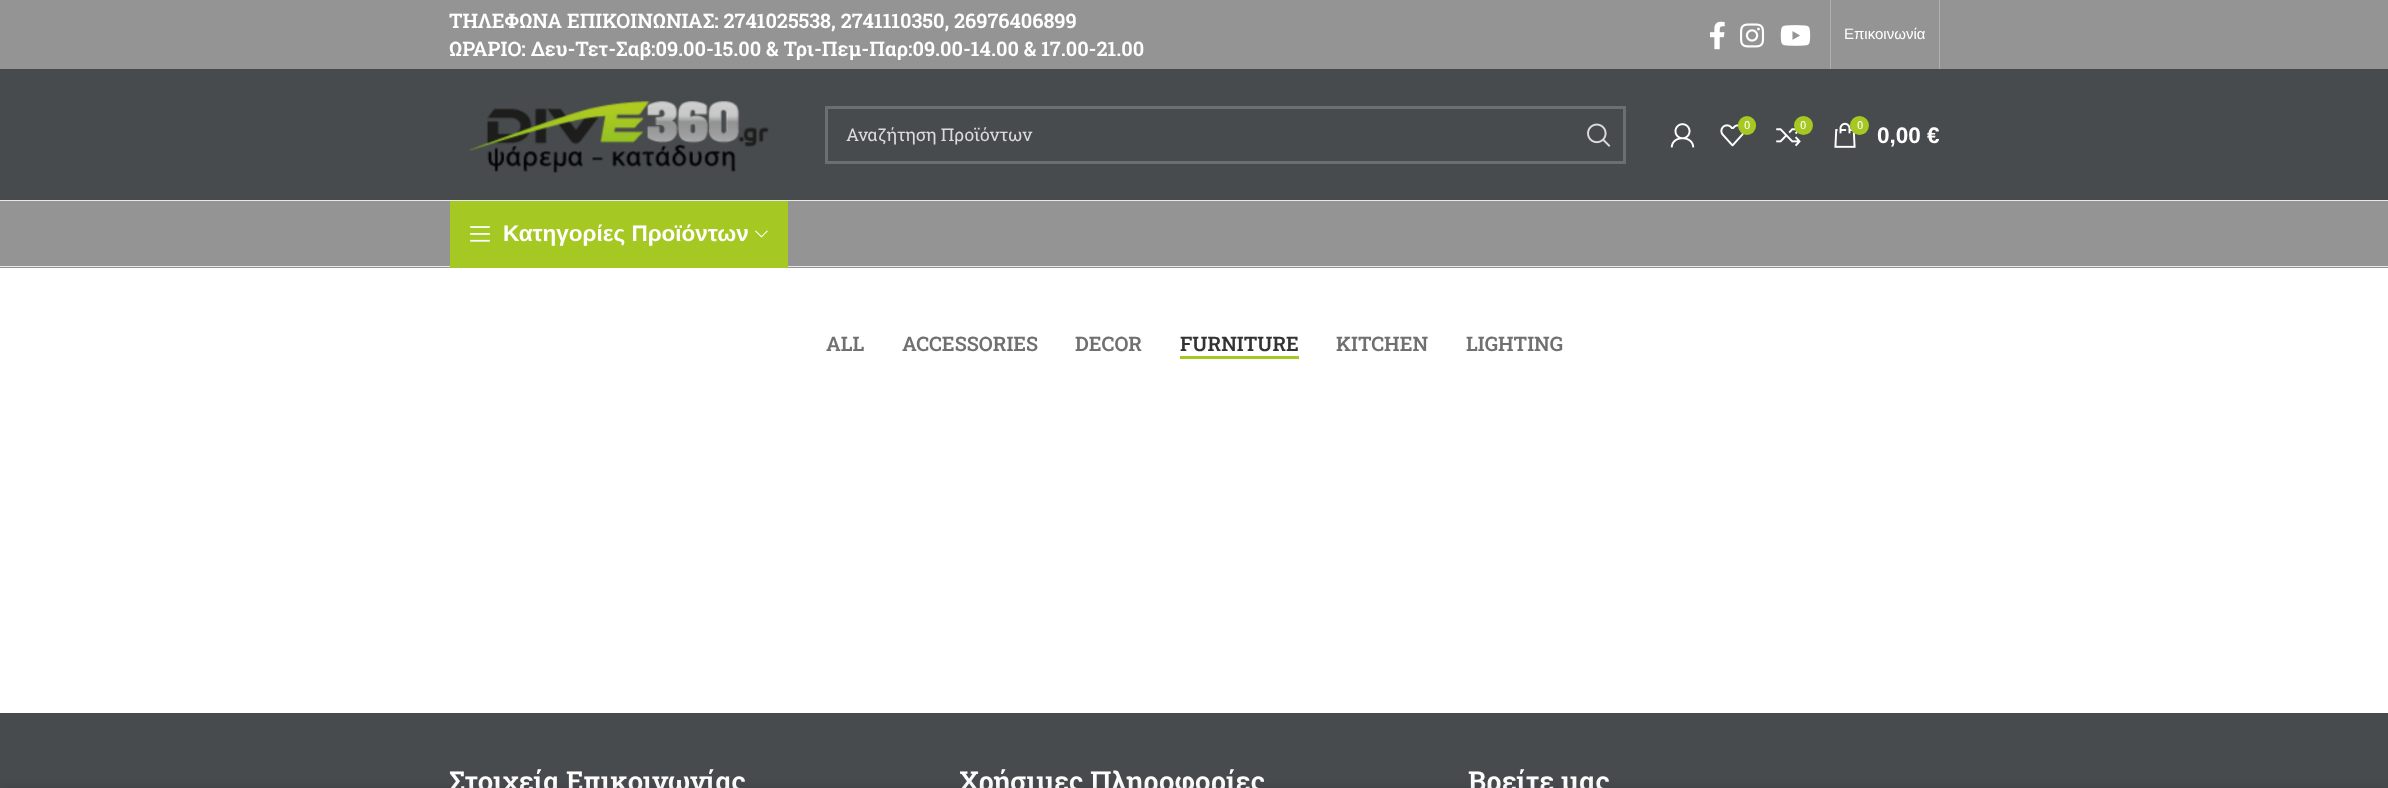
async function draw(canvas) {
  canvas.width = 2388
  canvas.height = 788
  const ctx = canvas.getContext('2d')
  ctx.miterLimit = 4
  ctx.fontKerning = 'normal'
  async function loadImage(src) {
    const img = new Image()
    img.src = src
    await img.decode()
    return img
  }

  ctx.fillStyle = '#fff'
  ctx.fillRect(0, 0, 2388, 788)
  ctx.fillStyle = '#949494'
  ctx.fillRect(0, 0, 2388, 69)
  ctx.font = '600 20px Roboto Slab'
  ctx.fillStyle = '#fff'
  ctx.fillText('ΤΗΛΕΦΩΝΑ ΕΠΙΚΟΙΝΩΝΙΑΣ: 2741025538, 2741110350, 26976406899', 449, 28)
  ctx.fillText('ΩΡΑΡΙΟ: Δευ-Τετ-Σαβ:09.00-15.00 & Τρι-Πεμ-Παρ:09.00-14.00 & 17.00-21.00', 449, 56)
  ctx.drawImage(await loadImage('image0.png'), 1710, 21, 15, 29)
  ctx.drawImage(await loadImage('image1.png'), 1740, 23, 25, 25)
  ctx.drawImage(await loadImage('image2.png'), 1780, 25, 31, 21)
  ctx.fillStyle = '#afafaf'
  ctx.fillRect(1830, 0, 1, 69)
  ctx.font = '15px Liberation Sans'
  ctx.fillStyle = '#fff'
  ctx.fillText('Επικοινωνία', 1844, 39)
  ctx.fillStyle = '#afafaf'
  ctx.fillRect(1939, 0, 1, 69)
  ctx.fillStyle = '#474b4d'
  ctx.fillRect(0, 69, 2388, 131)
  ctx.fillStyle = '#e8e8e8'
  ctx.fillRect(0, 200, 2388, 1)
  ctx.drawImage(await loadImage('image3.png'), 469, 100, 300, 73)
  ctx.strokeStyle = '#6c6f71'
  ctx.lineWidth = 3
  ctx.strokeRect(826.5, 107.5, 798, 55)
  ctx.font = '17.5px Roboto Slab'
  ctx.fillStyle = '#dadbdb'
  ctx.fillText('Αναζήτηση Προϊόντων', 846, 141)
  ctx.drawImage(await loadImage('image4.png'), 1587, 123, 24, 24)
  ctx.drawImage(await loadImage('image5.png'), 1670, 123, 25, 25)
  ctx.drawImage(await loadImage('image6.png'), 1720, 124, 24, 23)
  ctx.fillStyle = '#a6c822'
  ctx.beginPath()
  ctx.roundRect(1738, 116, 18, 19, 9)
  ctx.fill()
  ctx.font = '11px Roboto Slab'
  ctx.fillStyle = '#fff'
  ctx.fillText('0', 1744, 129)
  ctx.drawImage(await loadImage('image7.png'), 1776, 125, 25, 22)
  ctx.fillStyle = '#a6c822'
  ctx.beginPath()
  ctx.arc(1803.5, 125.5, 9.5, 0, 2 * Math.PI)
  ctx.fill()
  ctx.fillStyle = '#fff'
  ctx.fillText('0', 1800, 129)
  ctx.drawImage(await loadImage('image8.png'), 1834, 122, 22, 26)
  ctx.fillStyle = '#a6c822'
  ctx.beginPath()
  ctx.arc(1859.5, 125.5, 9.5, 0, 2 * Math.PI)
  ctx.fill()
  ctx.fillStyle = '#fff'
  ctx.fillText('0', 1857, 129)
  ctx.font = 'bold 22.5px Liberation Sans'
  ctx.fillText('0,00 €', 1877, 143)
  ctx.fillStyle = '#949494'
  ctx.fillRect(0, 201, 2388, 67)
  ctx.fillStyle = '#e8e8e8'
  ctx.fillRect(0, 266, 2388, 1)
  ctx.fillStyle = '#a6c822'
  ctx.fillRect(450, 201, 338, 67)
  ctx.drawImage(await loadImage('image9.png'), 470, 226, 20, 16)
  ctx.fillStyle = '#fff'
  ctx.fillText('Κατηγορίες Προϊόντων', 503, 241)
  ctx.drawImage(await loadImage('image10.png'), 755, 230, 13, 8)
  ctx.font = '600 20px Roboto Slab'
  ctx.fillStyle = '#707070'
  ctx.fillText('ALL', 826, 351)
  ctx.fillText('ACCESSORIES', 902, 351)
  ctx.fillText('DECOR', 1075, 351)
  ctx.fillStyle = '#333'
  ctx.fillText('FURNITURE', 1180, 351)
  ctx.fillStyle = '#a6c822'
  ctx.fillRect(1180, 356, 119, 3)
  ctx.fillStyle = '#707070'
  ctx.fillText('KITCHEN', 1336, 351)
  ctx.fillText('LIGHTING', 1466, 351)
  ctx.fillStyle = '#474b4d'
  ctx.fillRect(0, 713, 2388, 75)
  ctx.font = '600 27.5px Roboto Slab'
  ctx.fillStyle = '#fff'
  ctx.fillText('Στοιχεία Επικοινωνίας', 449, 791)
  ctx.fillText('Χρήσιμες Πληροφορίες', 959, 791)
  ctx.fillText('Βρείτε μας', 1468, 791)
  ctx.fillStyle = '#00000024'
  ctx.filter = 'blur(5.5px)'
  ctx.beginPath()
  ctx.rect(0, 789, 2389, 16)
  ctx.fill()
  ctx.filter = 'none'
}

draw(document.querySelector('canvas'))
